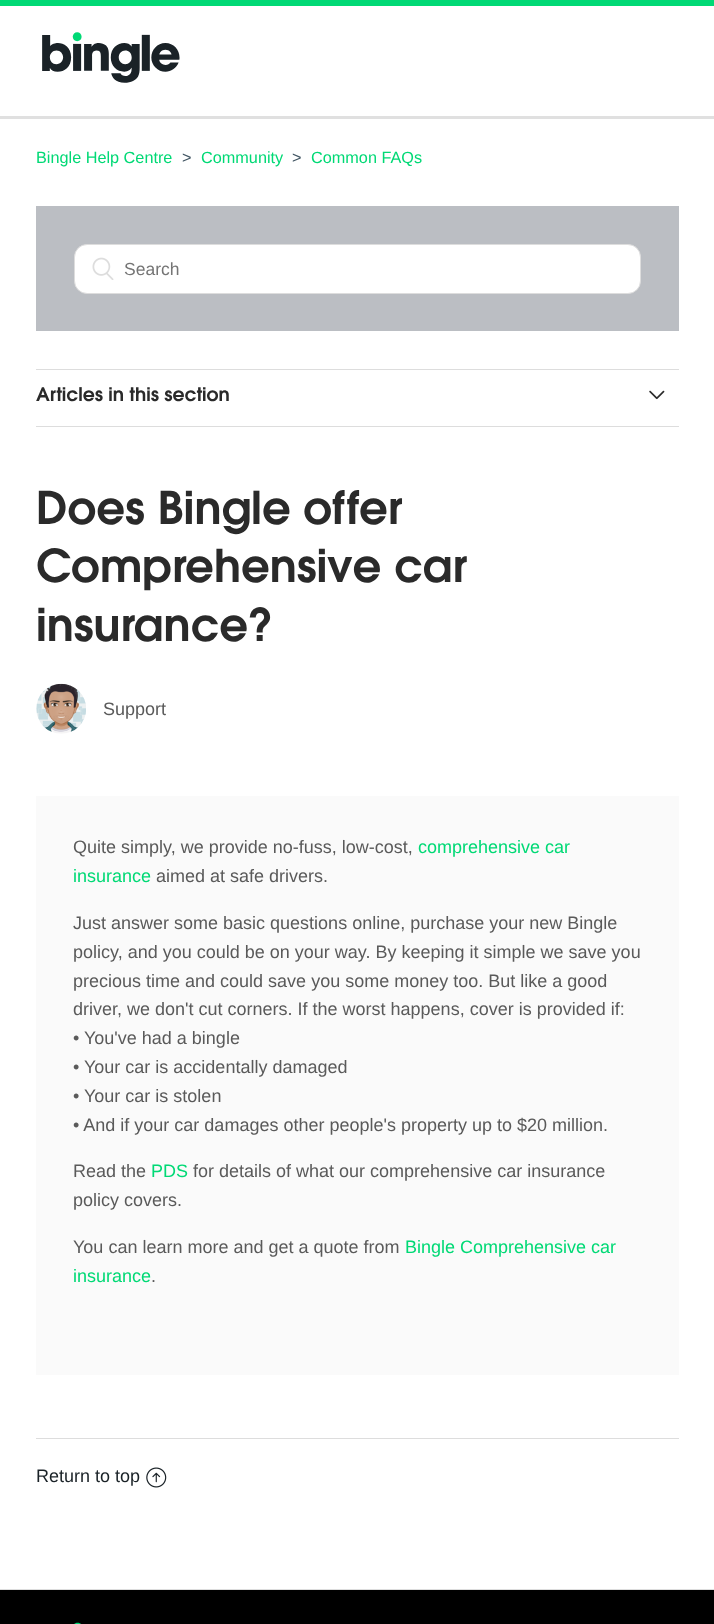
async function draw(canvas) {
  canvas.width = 714
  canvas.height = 1624
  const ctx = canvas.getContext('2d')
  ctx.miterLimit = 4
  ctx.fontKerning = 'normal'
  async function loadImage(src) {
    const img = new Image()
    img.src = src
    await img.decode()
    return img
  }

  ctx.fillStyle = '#fff'
  ctx.fillRect(0, 0, 714, 1624)
  ctx.fillStyle = '#00d975'
  ctx.fillRect(0, 0, 714, 6)
  ctx.fillStyle = '#e0e0e0'
  ctx.fillRect(0, 116, 714, 3)
  ctx.drawImage(await loadImage('image0.png'), 42, 32, 138, 51)
  ctx.font = '16.25px Liberation Sans'
  ctx.fillStyle = '#00d975'
  ctx.fillText('Bingle Help Centre', 36, 163)
  ctx.fillStyle = '#435764'
  ctx.fillText('>', 182, 163)
  ctx.fillStyle = '#00d975'
  ctx.fillText('Community', 201, 163)
  ctx.fillStyle = '#435764'
  ctx.fillText('>', 292, 163)
  ctx.fillStyle = '#00d975'
  ctx.fillText('Common FAQs', 311, 163)
  ctx.fillStyle = '#bbbec3'
  ctx.fillRect(36, 206, 643, 125)
  ctx.fillStyle = '#fff'
  ctx.beginPath()
  ctx.roundRect(74.5, 244.5, 566, 49, 12.5)
  ctx.fill()
  ctx.strokeStyle = '#ddd'
  ctx.stroke()
  ctx.drawImage(await loadImage('image1.png'), 92, 257, 22, 23)
  ctx.font = '17.5px Liberation Sans'
  ctx.fillStyle = '#757575'
  ctx.fillText('Search', 124, 275)
  ctx.fillStyle = '#ddd'
  ctx.fillRect(36, 369, 643, 1)
  ctx.fillRect(36, 426, 643, 1)
  ctx.font = '18.75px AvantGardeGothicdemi'
  ctx.fillStyle = '#2a2a2a'
  ctx.fillText('Articles in this section', 36, 401)
  ctx.drawImage(await loadImage('image2.png'), 649, 390, 16, 10)
  ctx.font = '45px AvantGardeGothicdemi'
  ctx.fillText('Does Bingle offer', 36, 524)
  ctx.fillText('Comprehensive car', 36, 582)
  ctx.fillText('insurance?', 36, 641)
  ctx.drawImage(await loadImage('image3.png'), 36, 683, 50, 51)
  ctx.font = '18px Liberation Sans'
  ctx.fillStyle = '#5a5a5a'
  ctx.fillText('Support', 103, 715)
  ctx.fillStyle = '#fafafa'
  ctx.fillRect(36, 796, 643, 579)
  ctx.fillStyle = '#5a5a5a'
  ctx.fillText('Quite simply, we provide no-fuss, low-cost,', 73, 853)
  ctx.fillStyle = '#00d975'
  ctx.fillText('comprehensive car', 418, 853)
  ctx.fillText('insurance', 73, 882)
  ctx.fillStyle = '#5a5a5a'
  ctx.fillText('aimed at safe drivers.', 156, 882)
  ctx.fillText('Just answer some basic questions online, purchase your new Bingle', 73, 929)
  ctx.fillText('policy, and you could be on your way. By keeping it simple we save you', 73, 958)
  ctx.fillText('precious time and could save you some money too. But like a good', 73, 987)
  ctx.fillText('driver, we don\'t cut corners. If the worst happens, cover is provided if:', 73, 1015)
  ctx.fillText('• You\'ve had a bingle', 73, 1044)
  ctx.fillText('• Your car is accidentally damaged', 73, 1073)
  ctx.fillText('• Your car is stolen', 73, 1102)
  ctx.fillText('• And if your car damages other people\'s property up to $20 million.', 73, 1131)
  ctx.fillText('Read the', 73, 1177)
  ctx.fillStyle = '#00d975'
  ctx.fillText('PDS', 151, 1177)
  ctx.fillStyle = '#5a5a5a'
  ctx.fillText('for details of what our comprehensive car insurance', 193, 1177)
  ctx.fillText('policy covers.', 73, 1206)
  ctx.fillText('You can learn more and get a quote from', 73, 1253)
  ctx.fillStyle = '#00d975'
  ctx.fillText('Bingle Comprehensive car', 405, 1253)
  ctx.fillText('insurance', 73, 1282)
  ctx.fillStyle = '#5a5a5a'
  ctx.fillText('.', 151, 1282)
  ctx.fillStyle = '#ddd'
  ctx.fillRect(36, 1438, 643, 1)
  ctx.fillStyle = '#1a2227'
  ctx.fillText('Return to top', 36, 1482)
  ctx.drawImage(await loadImage('image4.png'), 146, 1467, 21, 21)
  ctx.fillStyle = '#000'
  ctx.fillRect(0, 1590, 714, 34)
  ctx.fillStyle = '#ddd'
  ctx.fillRect(0, 1589, 714, 1)
  ctx.drawImage(await loadImage('image5.png'), 74, 1622, 7, 2)
}

draw(document.querySelector('canvas'))
